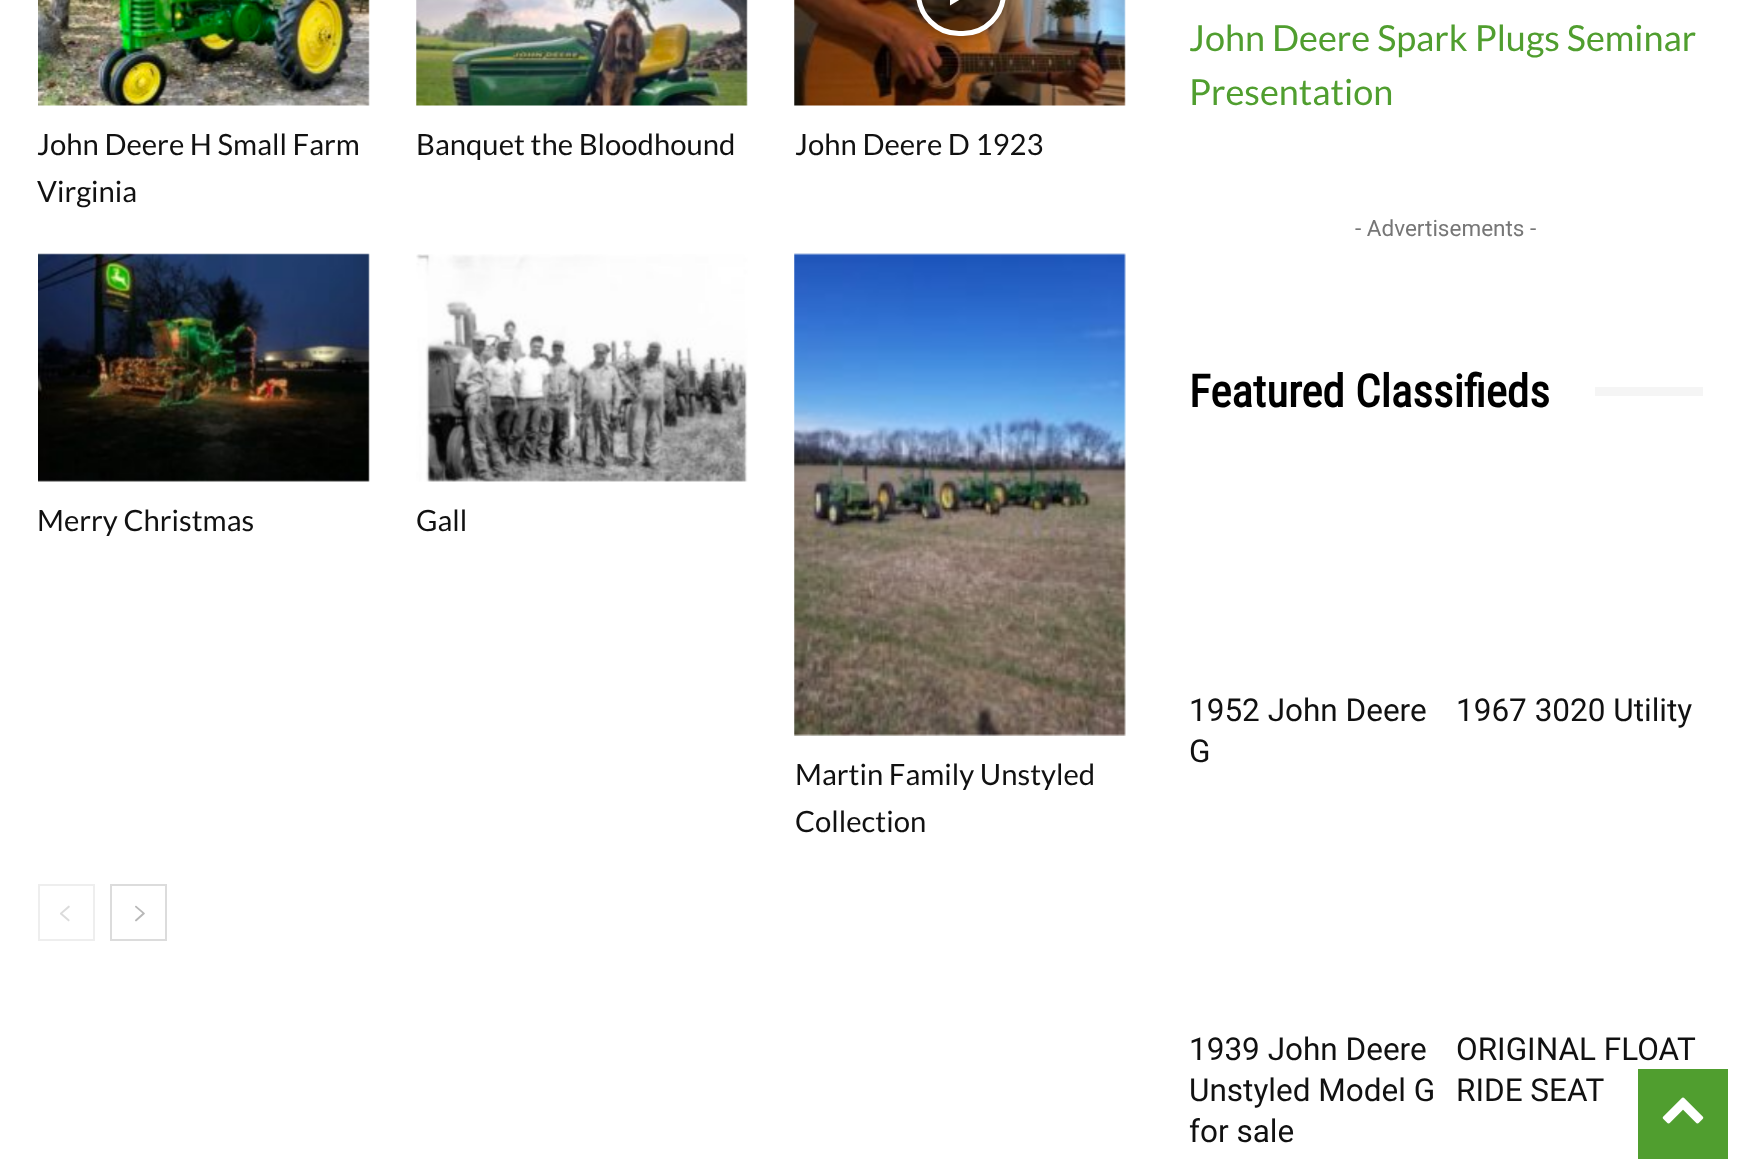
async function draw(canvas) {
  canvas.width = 1738
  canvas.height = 1166
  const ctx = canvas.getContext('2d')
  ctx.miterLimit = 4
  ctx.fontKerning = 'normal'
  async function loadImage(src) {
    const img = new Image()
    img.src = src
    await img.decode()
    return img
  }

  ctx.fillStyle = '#fff'
  ctx.fillRect(0, 0, 1738, 1166)
  ctx.drawImage(await loadImage('image0.png'), 38, 0, 332, 106)
  ctx.font = '29.25px Lato'
  ctx.fillStyle = '#111'
  ctx.fillText('John Deere H Small Farm', 37, 155)
  ctx.fillText('Virginia', 37, 202)
  ctx.drawImage(await loadImage('image1.png'), 416, 0, 332, 106)
  ctx.fillText('Banquet the Bloodhound', 416, 155)
  ctx.drawImage(await loadImage('image2.png'), 794, 0, 332, 106)
  ctx.save()
  ctx.beginPath()
  ctx.moveTo(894, 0)
  ctx.lineTo(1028, 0)
  ctx.lineTo(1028, 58)
  ctx.lineTo(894, 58)
  ctx.closePath()
  ctx.moveTo(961, -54)
  ctx.bezierCurveTo(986, -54, 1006, -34, 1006, -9)
  ctx.bezierCurveTo(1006, 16, 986, 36, 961, 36)
  ctx.bezierCurveTo(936, 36, 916, 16, 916, -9)
  ctx.bezierCurveTo(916, -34, 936, -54, 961, -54)
  ctx.closePath()
  ctx.clip('evenodd')
  ctx.fillStyle = '#00000066'
  ctx.filter = 'blur(7px)'
  ctx.beginPath()
  ctx.roundRect(916, -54, 90, 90, 45)
  ctx.fill()
  ctx.filter = 'none'
  ctx.restore()
  ctx.fillStyle = '#0000007a'
  ctx.beginPath()
  ctx.roundRect(918.5, -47.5, 85, 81, 42.5)
  ctx.fill()
  ctx.strokeStyle = '#fff'
  ctx.lineWidth = 5
  ctx.stroke()
  ctx.fillStyle = '#fff'
  ctx.beginPath()
  ctx.moveTo(950, -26)
  ctx.lineTo(950, 5.5)
  ctx.lineTo(976, -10)
  ctx.closePath()
  ctx.fill()
  ctx.fillStyle = '#111'
  ctx.fillText('John Deere D 1923', 795, 155)
  ctx.drawImage(await loadImage('image3.png'), 38, 253, 332, 229)
  ctx.fillText('Merry Christmas', 37, 531)
  ctx.drawImage(await loadImage('image4.png'), 416, 254, 332, 228)
  ctx.fillText('Gall', 416, 531)
  ctx.drawImage(await loadImage('image5.png'), 794, 253, 332, 483)
  ctx.fillText('Martin Family Unstyled', 795, 785)
  ctx.fillText('Collection', 795, 832)
  ctx.strokeStyle = '#eee'
  ctx.lineWidth = 2
  ctx.strokeRect(39, 885, 55, 55)
  ctx.drawImage(await loadImage('image6.png'), 60, 905, 10, 17)
  ctx.strokeStyle = '#dcdcdc'
  ctx.strokeRect(111, 885, 55, 55)
  ctx.drawImage(await loadImage('image7.png'), 135, 905, 10, 17)
  ctx.font = '36px Lato'
  ctx.fillStyle = '#509e2f'
  ctx.fillText('John Deere Spark Plugs Seminar', 1189, 51)
  ctx.fillText('Presentation', 1189, 105)
  ctx.font = '22.5px Roboto'
  ctx.fillStyle = '#767676'
  ctx.fillText('- Advertisements -', 1355, 236)
  ctx.font = 'bold 45px Roboto Condensed'
  ctx.fillStyle = '#000'
  ctx.fillText('Featured Classifieds', 1189, 407)
  ctx.fillStyle = '#f5f5f5'
  ctx.fillRect(1595, 387, 108, 9)
  ctx.font = '31.5px Roboto'
  ctx.fillStyle = '#111'
  ctx.fillText('1952 John Deere', 1189, 721)
  ctx.fillText('G', 1189, 762)
  ctx.fillText('1967 3020 Utility', 1456, 721)
  ctx.fillText('1939 John Deere', 1189, 1060)
  ctx.fillText('Unstyled Model G', 1189, 1101)
  ctx.fillText('for sale', 1189, 1142)
  ctx.fillText('ORIGINAL FLOAT', 1456, 1060)
  ctx.fillText('RIDE SEAT', 1456, 1101)
  ctx.fillStyle = '#509e2f'
  ctx.fillRect(1638, 1069, 90, 90)
  ctx.drawImage(await loadImage('image8.png'), 1662, 1097, 42, 27)
}

draw(document.querySelector('canvas'))
